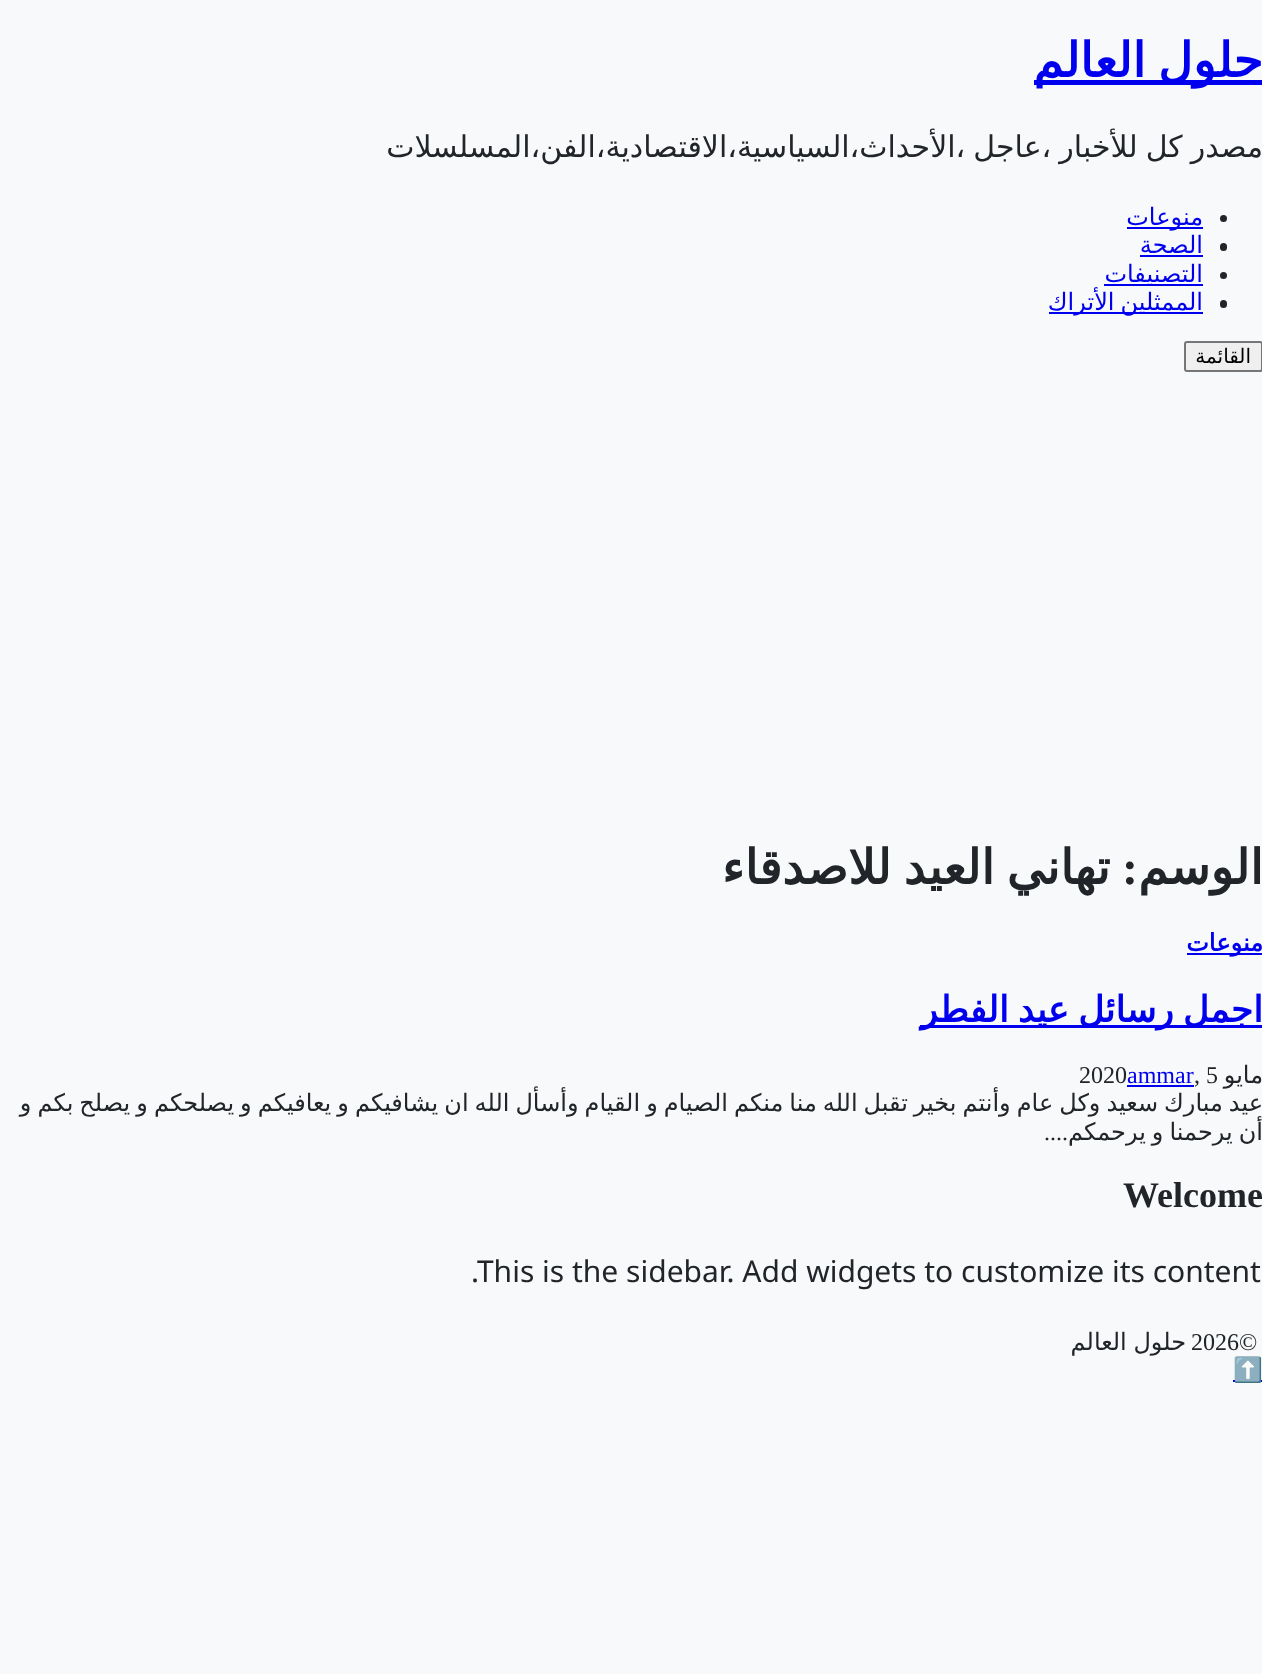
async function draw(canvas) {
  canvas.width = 1262
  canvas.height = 1674
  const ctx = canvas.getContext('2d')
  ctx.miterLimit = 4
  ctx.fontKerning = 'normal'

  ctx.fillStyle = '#f8f9fa'
  ctx.fillRect(0, 0, 1262, 1674)
  ctx.fillStyle = '#00e'
  ctx.fillRect(1034, 80, 228, 5)
  ctx.wordSpacing = '-3px'
  ctx.direction = 'rtl'
  ctx.font = 'bold 48px DejaVu Sans'
  ctx.fillText('حلول العالم', 1263, 77)
  ctx.wordSpacing = '-1.5px'
  ctx.font = '30px DejaVu Sans'
  ctx.fillStyle = '#212529'
  ctx.fillText('مصدر كل للأخبار ،عاجل ،الأحداث،السياسية،الاقتصادية،الفن،المسلسلات', 1263, 157)
  ctx.beginPath()
  ctx.arc(1223.5, 218.5, 3.5, 0, 2 * Math.PI)
  ctx.fill()
  ctx.fillStyle = '#00e'
  ctx.fillRect(1127, 227, 76, 2)
  ctx.wordSpacing = '0px'
  ctx.font = '24px DejaVu Sans'
  ctx.fillText('منوعات', 1203, 225)
  ctx.fillStyle = '#212529'
  ctx.beginPath()
  ctx.roundRect(1220, 243, 7, 8, 3.5)
  ctx.fill()
  ctx.fillStyle = '#00e'
  ctx.fillText('الصحة', 1203, 253)
  ctx.fillRect(1140, 255, 63, 2)
  ctx.fillStyle = '#212529'
  ctx.beginPath()
  ctx.arc(1223.5, 275.5, 3.5, 0, 2 * Math.PI)
  ctx.fill()
  ctx.fillStyle = '#00e'
  ctx.fillRect(1104, 284, 99, 2)
  ctx.fillText('التصنيفات', 1203, 282)
  ctx.fillStyle = '#212529'
  ctx.beginPath()
  ctx.roundRect(1220, 300, 7, 8, 3.5)
  ctx.fill()
  ctx.fillStyle = '#00e'
  ctx.fillRect(1049, 312, 154, 2)
  ctx.wordSpacing = '-1.6px'
  ctx.fillText('الممثلين الأتراك', 1203, 310)
  ctx.fillStyle = '#efefef'
  ctx.beginPath()
  ctx.roundRect(1185, 342, 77, 29, 2)
  ctx.fill()
  ctx.strokeStyle = '#767676'
  ctx.lineWidth = 2
  ctx.stroke()
  ctx.wordSpacing = '0px'
  ctx.font = '20px DejaVu Sans'
  ctx.fillStyle = '#000'
  ctx.fillText('القائمة', 1251, 363)
  ctx.font = 'bold 48px DejaVu Sans'
  ctx.fillStyle = '#212529'
  ctx.fillText('الوسم', 1263, 884)
  ctx.font = 'bold 48px Liberation Serif'
  ctx.fillText(':', 1138, 884)
  ctx.wordSpacing = '-3px'
  ctx.font = 'bold 48px DejaVu Sans'
  ctx.fillText('تهاني العيد للاصدقاء', 1110, 884)
  ctx.fillStyle = '#00e'
  ctx.fillRect(1187, 953, 75, 2)
  ctx.wordSpacing = '0px'
  ctx.font = 'bold 24px DejaVu Sans'
  ctx.fillText('منوعات', 1263, 951)
  ctx.fillRect(920, 1025, 342, 3)
  ctx.wordSpacing = '-2.5px'
  ctx.font = 'bold 36px DejaVu Sans'
  ctx.fillText('اجمل رسائل عيد الفطر', 1263, 1022)
  ctx.wordSpacing = '0px'
  ctx.font = '24px DejaVu Sans'
  ctx.fillStyle = '#212529'
  ctx.fillText('مايو', 1263, 1083)
  ctx.direction = 'ltr'
  ctx.font = '24px Liberation Serif'
  ctx.fillText(', 5', 1194, 1083)
  ctx.fillStyle = '#00e'
  ctx.fillText('ammar', 1127, 1083)
  ctx.fillRect(1127, 1085, 67, 2)
  ctx.fillStyle = '#212529'
  ctx.fillText('2020', 1079, 1083)
  ctx.wordSpacing = '-1.6px'
  ctx.direction = 'rtl'
  ctx.font = '24px DejaVu Sans'
  ctx.fillText('عيد مبارك سعيد وكل عام وأنتم بخير تقبل الله منا منكم الصيام و القيام وأسأل الله ان يشافيكم و يعافيكم و يصلحكم و يصلح بكم و', 1263, 1111)
  ctx.fillText('أن يرحمنا و يرحمكم', 1263, 1140)
  ctx.wordSpacing = '0px'
  ctx.font = '24px Liberation Serif'
  ctx.fillText('....', 1068, 1140)
  ctx.direction = 'ltr'
  ctx.font = 'bold 36px Liberation Serif'
  ctx.fillText('Welcome', 1123, 1207)
  ctx.font = '30px Noto Sans'
  ctx.fillText('.This is the sidebar. Add widgets to customize its content', 471, 1282)
  ctx.font = '24px Liberation Serif'
  ctx.fillText('2026©', 1191, 1350)
  ctx.wordSpacing = '-1px'
  ctx.direction = 'rtl'
  ctx.font = '24px DejaVu Sans'
  ctx.fillText('حلول العالم', 1186, 1350)
  ctx.fillStyle = '#00e'
  ctx.fillRect(1233, 1380, 29, 2)
  ctx.wordSpacing = '0px'
  ctx.direction = 'ltr'
  ctx.font = '24px Noto Color Emoji'
  ctx.fillText('⬆️', 1233, 1378)
}

draw(document.querySelector('canvas'))
